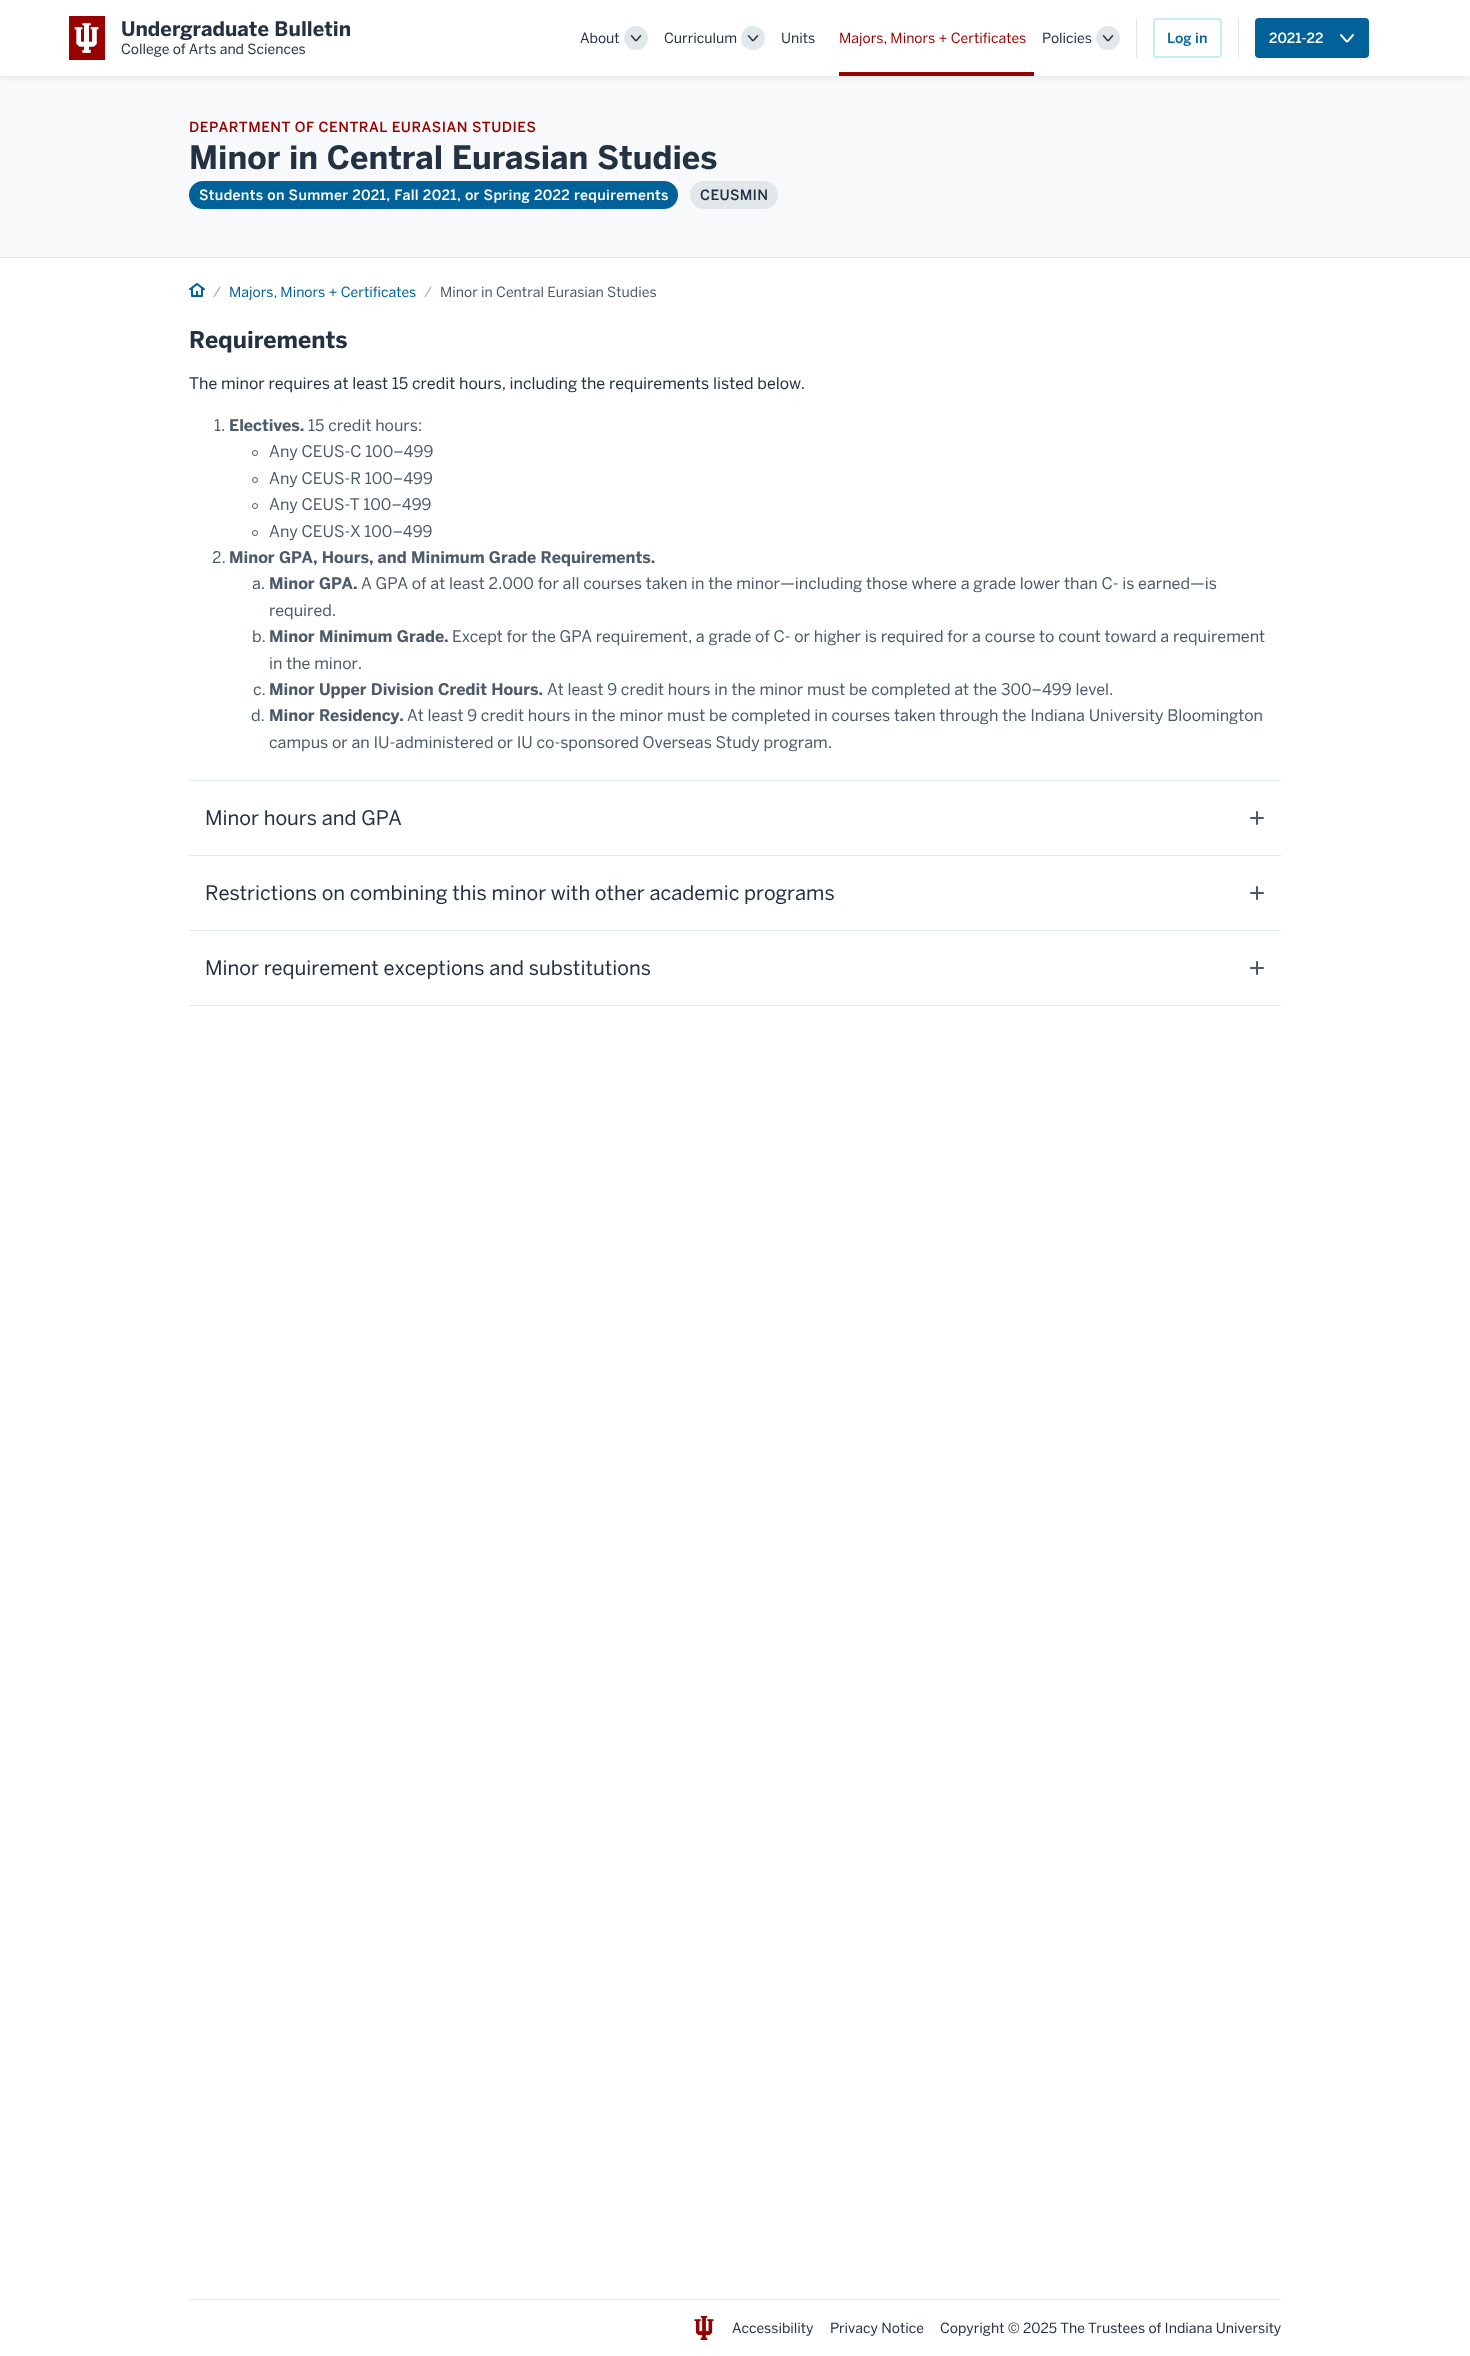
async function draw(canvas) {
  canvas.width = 1470
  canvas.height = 2356
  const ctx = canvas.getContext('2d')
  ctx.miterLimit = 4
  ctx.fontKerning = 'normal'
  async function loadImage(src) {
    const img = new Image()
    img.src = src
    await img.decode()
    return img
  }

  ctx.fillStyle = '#fff'
  ctx.fillRect(0, 0, 1470, 2356)
  ctx.fillStyle = '#f8f9fa'
  ctx.fillRect(0, 76, 1470, 181)
  ctx.save()
  ctx.beginPath()
  ctx.rect(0, 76, 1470, 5)
  ctx.clip()
  ctx.fillStyle = '#24314212'
  ctx.filter = 'blur(3px)'
  ctx.beginPath()
  ctx.rect(0, 3, 1470, 76)
  ctx.fill()
  ctx.filter = 'none'
  ctx.restore()
  ctx.fillStyle = '#900'
  ctx.fillRect(69, 16, 36, 44)
  ctx.drawImage(await loadImage('image0.png'), 74, 23, 25, 30)
  ctx.font = 'bold 20px "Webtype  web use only"'
  ctx.fillStyle = '#243142'
  ctx.fillText('Undergraduate Bulletin', 121, 36)
  ctx.font = '14px "Webtype  web use only"'
  ctx.fillText('College of Arts and Sciences', 121, 54)
  ctx.fillText('About', 580, 43)
  ctx.fillStyle = '#e2e7e9'
  ctx.beginPath()
  ctx.arc(636, 38, 12, 0, 2 * Math.PI)
  ctx.fill()
  ctx.drawImage(await loadImage('image1.png'), 630, 35, 12, 7)
  ctx.fillStyle = '#243142'
  ctx.fillText('Curriculum', 664, 43)
  ctx.fillStyle = '#e2e7e9'
  ctx.beginPath()
  ctx.arc(753, 38, 12, 0, 2 * Math.PI)
  ctx.fill()
  ctx.drawImage(await loadImage('image1.png'), 747, 35, 12, 7)
  ctx.fillStyle = '#243142'
  ctx.fillText('Units', 781, 43)
  ctx.fillStyle = '#900'
  ctx.fillText('Majors, Minors + Certificates', 839, 43)
  ctx.fillRect(839, 72, 195, 4)
  ctx.fillStyle = '#243142'
  ctx.fillText('Policies', 1042, 43)
  ctx.fillStyle = '#e2e7e9'
  ctx.beginPath()
  ctx.arc(1108, 38, 12, 0, 2 * Math.PI)
  ctx.fill()
  ctx.drawImage(await loadImage('image1.png'), 1102, 35, 12, 7)
  ctx.fillRect(1136, 18, 1, 40)
  ctx.beginPath()
  ctx.roundRect(1154, 19, 67, 38, 3)
  ctx.strokeStyle = '#c6ecf6'
  ctx.lineWidth = 2
  ctx.stroke()
  ctx.font = '500 14px "Webtype  web use only"'
  ctx.fillStyle = '#006298'
  ctx.fillText('Log in', 1167, 43)
  ctx.fillStyle = '#e2e7e9'
  ctx.fillRect(1238, 18, 1, 40)
  ctx.fillStyle = '#006298'
  ctx.beginPath()
  ctx.roundRect(1256, 19, 112, 38, 3)
  ctx.fill()
  ctx.strokeStyle = '#006298'
  ctx.stroke()
  ctx.fillStyle = '#fff'
  ctx.fillText('2021-22', 1269, 43)
  ctx.drawImage(await loadImage('image2.png'), 1340, 34, 14, 9)
  ctx.fillStyle = '#e2e7e9'
  ctx.fillRect(0, 257, 1470, 1)
  ctx.letterSpacing = '0.5px'
  ctx.fillStyle = '#900'
  ctx.fillText('DEPARTMENT OF CENTRAL EURASIAN STUDIES', 189, 132)
  ctx.letterSpacing = '0px'
  ctx.font = 'bold 32px "Webtype  web use only"'
  ctx.fillStyle = '#243142'
  ctx.fillText('Minor in Central Eurasian Studies', 189, 169)
  ctx.fillStyle = '#006298'
  ctx.beginPath()
  ctx.roundRect(190, 182, 487, 26, 13)
  ctx.fill()
  ctx.stroke()
  ctx.letterSpacing = '0.32px'
  ctx.font = '500 14.1px "Webtype  web use only"'
  ctx.fillStyle = '#fff'
  ctx.fillText('Students on Summer 2021, Fall 2021, or Spring 2022 requirements', 199, 200)
  ctx.fillStyle = '#e2e7e9'
  ctx.beginPath()
  ctx.roundRect(691, 182, 86, 26, 13)
  ctx.fill()
  ctx.strokeStyle = '#e2e7e9'
  ctx.stroke()
  ctx.fillStyle = '#243142'
  ctx.fillText('CEUSMIN', 700, 200)
  ctx.drawImage(await loadImage('image3.png'), 189, 283, 16, 14)
  ctx.letterSpacing = '0px'
  ctx.font = '14px "Webtype  web use only"'
  ctx.fillStyle = '#a0abb4'
  ctx.fillText('/', 213, 297)
  ctx.fillStyle = '#006298'
  ctx.fillText('Majors, Minors + Certificates', 229, 297)
  ctx.fillStyle = '#a0abb4'
  ctx.fillText('/', 424, 297)
  ctx.fillStyle = '#4c5a69'
  ctx.fillText('Minor in Central Eurasian Studies', 440, 297)
  ctx.font = 'bold 23px "Webtype  web use only"'
  ctx.fillStyle = '#243142'
  ctx.fillText('Requirements', 189, 348)
  ctx.font = '16px "Webtype  web use only"'
  ctx.fillText('The minor requires at least 15 credit hours, including the requirements listed below.', 189, 389)
  ctx.fillStyle = '#4c5a69'
  ctx.fillText('1.', 214, 431)
  ctx.font = 'bold 16px "Webtype  web use only"'
  ctx.fillText('Electives.', 229, 431)
  ctx.font = '16px "Webtype  web use only"'
  ctx.fillText('15 credit hours:', 308, 431)
  ctx.beginPath()
  ctx.arc(255, 453, 2.5, 0, 2 * Math.PI)
  ctx.strokeStyle = '#4c5a69'
  ctx.lineWidth = 1
  ctx.stroke()
  ctx.fillText('Any CEUS-C 100–499', 269, 457)
  ctx.beginPath()
  ctx.arc(255, 480, 2.5, 0, 2 * Math.PI)
  ctx.stroke()
  ctx.fillText('Any CEUS-R 100–499', 269, 484)
  ctx.beginPath()
  ctx.arc(255, 506, 2.5, 0, 2 * Math.PI)
  ctx.stroke()
  ctx.fillText('Any CEUS-T 100–499', 269, 510)
  ctx.beginPath()
  ctx.arc(255, 533, 2.5, 0, 2 * Math.PI)
  ctx.stroke()
  ctx.fillText('Any CEUS-X 100–499', 269, 537)
  ctx.fillText('2.', 212, 563)
  ctx.font = 'bold 16px "Webtype  web use only"'
  ctx.fillText('Minor GPA, Hours, and Minimum Grade Requirements.', 229, 563)
  ctx.font = '16px "Webtype  web use only"'
  ctx.fillText('a.', 252, 589)
  ctx.font = 'bold 16px "Webtype  web use only"'
  ctx.fillText('Minor GPA.', 269, 589)
  ctx.font = '16px "Webtype  web use only"'
  ctx.fillText('A GPA of at least 2.000 for all courses taken in the minor—including those where a grade lower than C- is earned—is', 361, 589)
  ctx.fillText('required.', 269, 616)
  ctx.fillText('b.', 252, 642)
  ctx.font = 'bold 16px "Webtype  web use only"'
  ctx.fillText('Minor Minimum Grade.', 269, 642)
  ctx.font = '16px "Webtype  web use only"'
  ctx.fillText('Except for the GPA requirement, a grade of C- or higher is required for a course to count toward a requirement', 452, 642)
  ctx.fillText('in the minor.', 269, 669)
  ctx.fillText('c.', 253, 695)
  ctx.font = 'bold 16px "Webtype  web use only"'
  ctx.fillText('Minor Upper Division Credit Hours.', 269, 695)
  ctx.font = '16px "Webtype  web use only"'
  ctx.fillText('At least 9 credit hours in the minor must be completed at the 300–499 level.', 547, 695)
  ctx.fillText('d.', 251, 721)
  ctx.font = 'bold 16px "Webtype  web use only"'
  ctx.fillText('Minor Residency.', 269, 721)
  ctx.font = '16px "Webtype  web use only"'
  ctx.fillText('At least 9 credit hours in the minor must be completed in courses taken through the Indiana University Bloomington', 407, 721)
  ctx.fillText('campus or an IU-administered or IU co-sponsored Overseas Study program.', 269, 748)
  ctx.fillStyle = '#e2e7e9'
  ctx.fillRect(189, 1005, 1092, 1)
  ctx.fillRect(189, 780, 1092, 1)
  ctx.font = '20px "Webtype  web use only"'
  ctx.fillStyle = '#243142'
  ctx.fillText('Minor hours and GPA', 205, 825)
  ctx.drawImage(await loadImage('image4.png'), 1250, 811, 14, 14)
  ctx.fillStyle = '#e2e7e9'
  ctx.fillRect(189, 855, 1092, 1)
  ctx.fillStyle = '#243142'
  ctx.fillText('Restrictions on combining this minor with other academic programs', 205, 900)
  ctx.drawImage(await loadImage('image4.png'), 1250, 886, 14, 14)
  ctx.fillStyle = '#e2e7e9'
  ctx.fillRect(189, 930, 1092, 1)
  ctx.fillStyle = '#243142'
  ctx.fillText('Minor requirement exceptions and substitutions', 205, 975)
  ctx.drawImage(await loadImage('image4.png'), 1250, 961, 14, 14)
  ctx.fillStyle = '#e2e7e9'
  ctx.fillRect(189, 2299, 1092, 1)
  ctx.drawImage(await loadImage('image5.png'), 694, 2316, 20, 24)
  ctx.font = '14px "Webtype  web use only"'
  ctx.fillStyle = '#243142'
  ctx.fillText('Accessibility', 732, 2333)
  ctx.fillText('Privacy Notice', 830, 2333)
  ctx.fillText('Copyright © 2025 The Trustees of Indiana University', 940, 2333)
}

draw(document.querySelector('canvas'))
